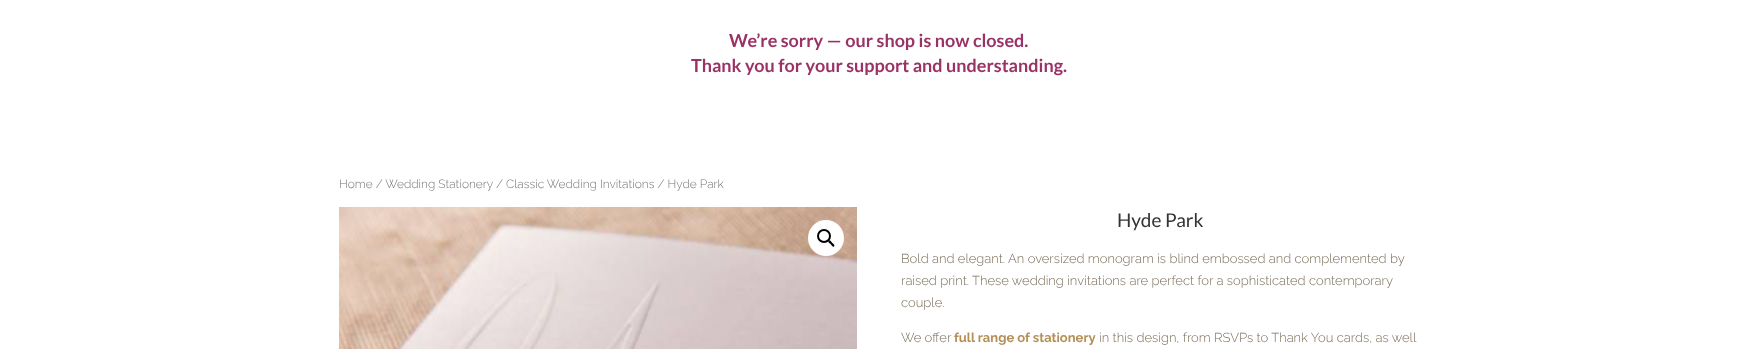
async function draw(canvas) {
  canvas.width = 1758
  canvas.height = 349
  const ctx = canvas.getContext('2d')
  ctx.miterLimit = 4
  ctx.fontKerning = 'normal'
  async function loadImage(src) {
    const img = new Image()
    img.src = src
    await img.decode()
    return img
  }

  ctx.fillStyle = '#fff'
  ctx.fillRect(0, 0, 1758, 349)
  ctx.font = 'bold 18px Lato'
  ctx.fillStyle = '#936'
  ctx.fillText('We’re sorry — our shop is now closed.', 729, 47)
  ctx.fillText('Thank you for your support and understanding.', 691, 72)
  ctx.font = '100 11.95px Raleway'
  ctx.fillStyle = '#767676'
  ctx.fillText('Home / Wedding Stationery / Classic Wedding Invitations / Hyde Park', 339, 188)
  ctx.drawImage(await loadImage('image0.png'), 339, 207, 518, 142)
  ctx.fillStyle = '#fff'
  ctx.beginPath()
  ctx.arc(826, 238, 18, 0, 2 * Math.PI)
  ctx.fill()
  ctx.beginPath()
  ctx.arc(824, 236, 6, 0, 2 * Math.PI)
  ctx.strokeStyle = '#000'
  ctx.lineWidth = 2
  ctx.stroke()
  ctx.fillStyle = '#000'
  ctx.beginPath()
  ctx.moveTo(828.5, 240.5)
  ctx.bezierCurveTo(830, 239.5, 831.5, 242, 832, 242.5)
  ctx.bezierCurveTo(832.5, 243.5, 835.5, 245, 834, 246.5)
  ctx.bezierCurveTo(833, 247.5, 831.5, 245, 830.5, 244)
  ctx.bezierCurveTo(830, 243.5, 827.5, 242, 828.5, 240.5)
  ctx.closePath()
  ctx.fill()
  ctx.font = '19px Lato'
  ctx.fillStyle = '#333'
  ctx.fillText('Hyde Park', 1117, 227)
  ctx.font = '100 13px Raleway'
  ctx.fillStyle = '#7a6e5a'
  ctx.fillText('Bold and elegant. An oversized monogram is blind embossed and complemented by', 901, 263)
  ctx.fillText('raised print. These wedding invitations are perfect for a sophisticated contemporary', 901, 285)
  ctx.fillText('couple.', 901, 307)
  ctx.fillText('We offer', 901, 342)
  ctx.font = '100 13px "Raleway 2"'
  ctx.fillStyle = '#b59056'
  ctx.fillText('full range of stationery', 954, 342)
  ctx.font = '100 13px Raleway'
  ctx.fillStyle = '#7a6e5a'
  ctx.fillText('in this design, from RSVPs to Thank You cards, as well', 1099, 342)
}

draw(document.querySelector('canvas'))
